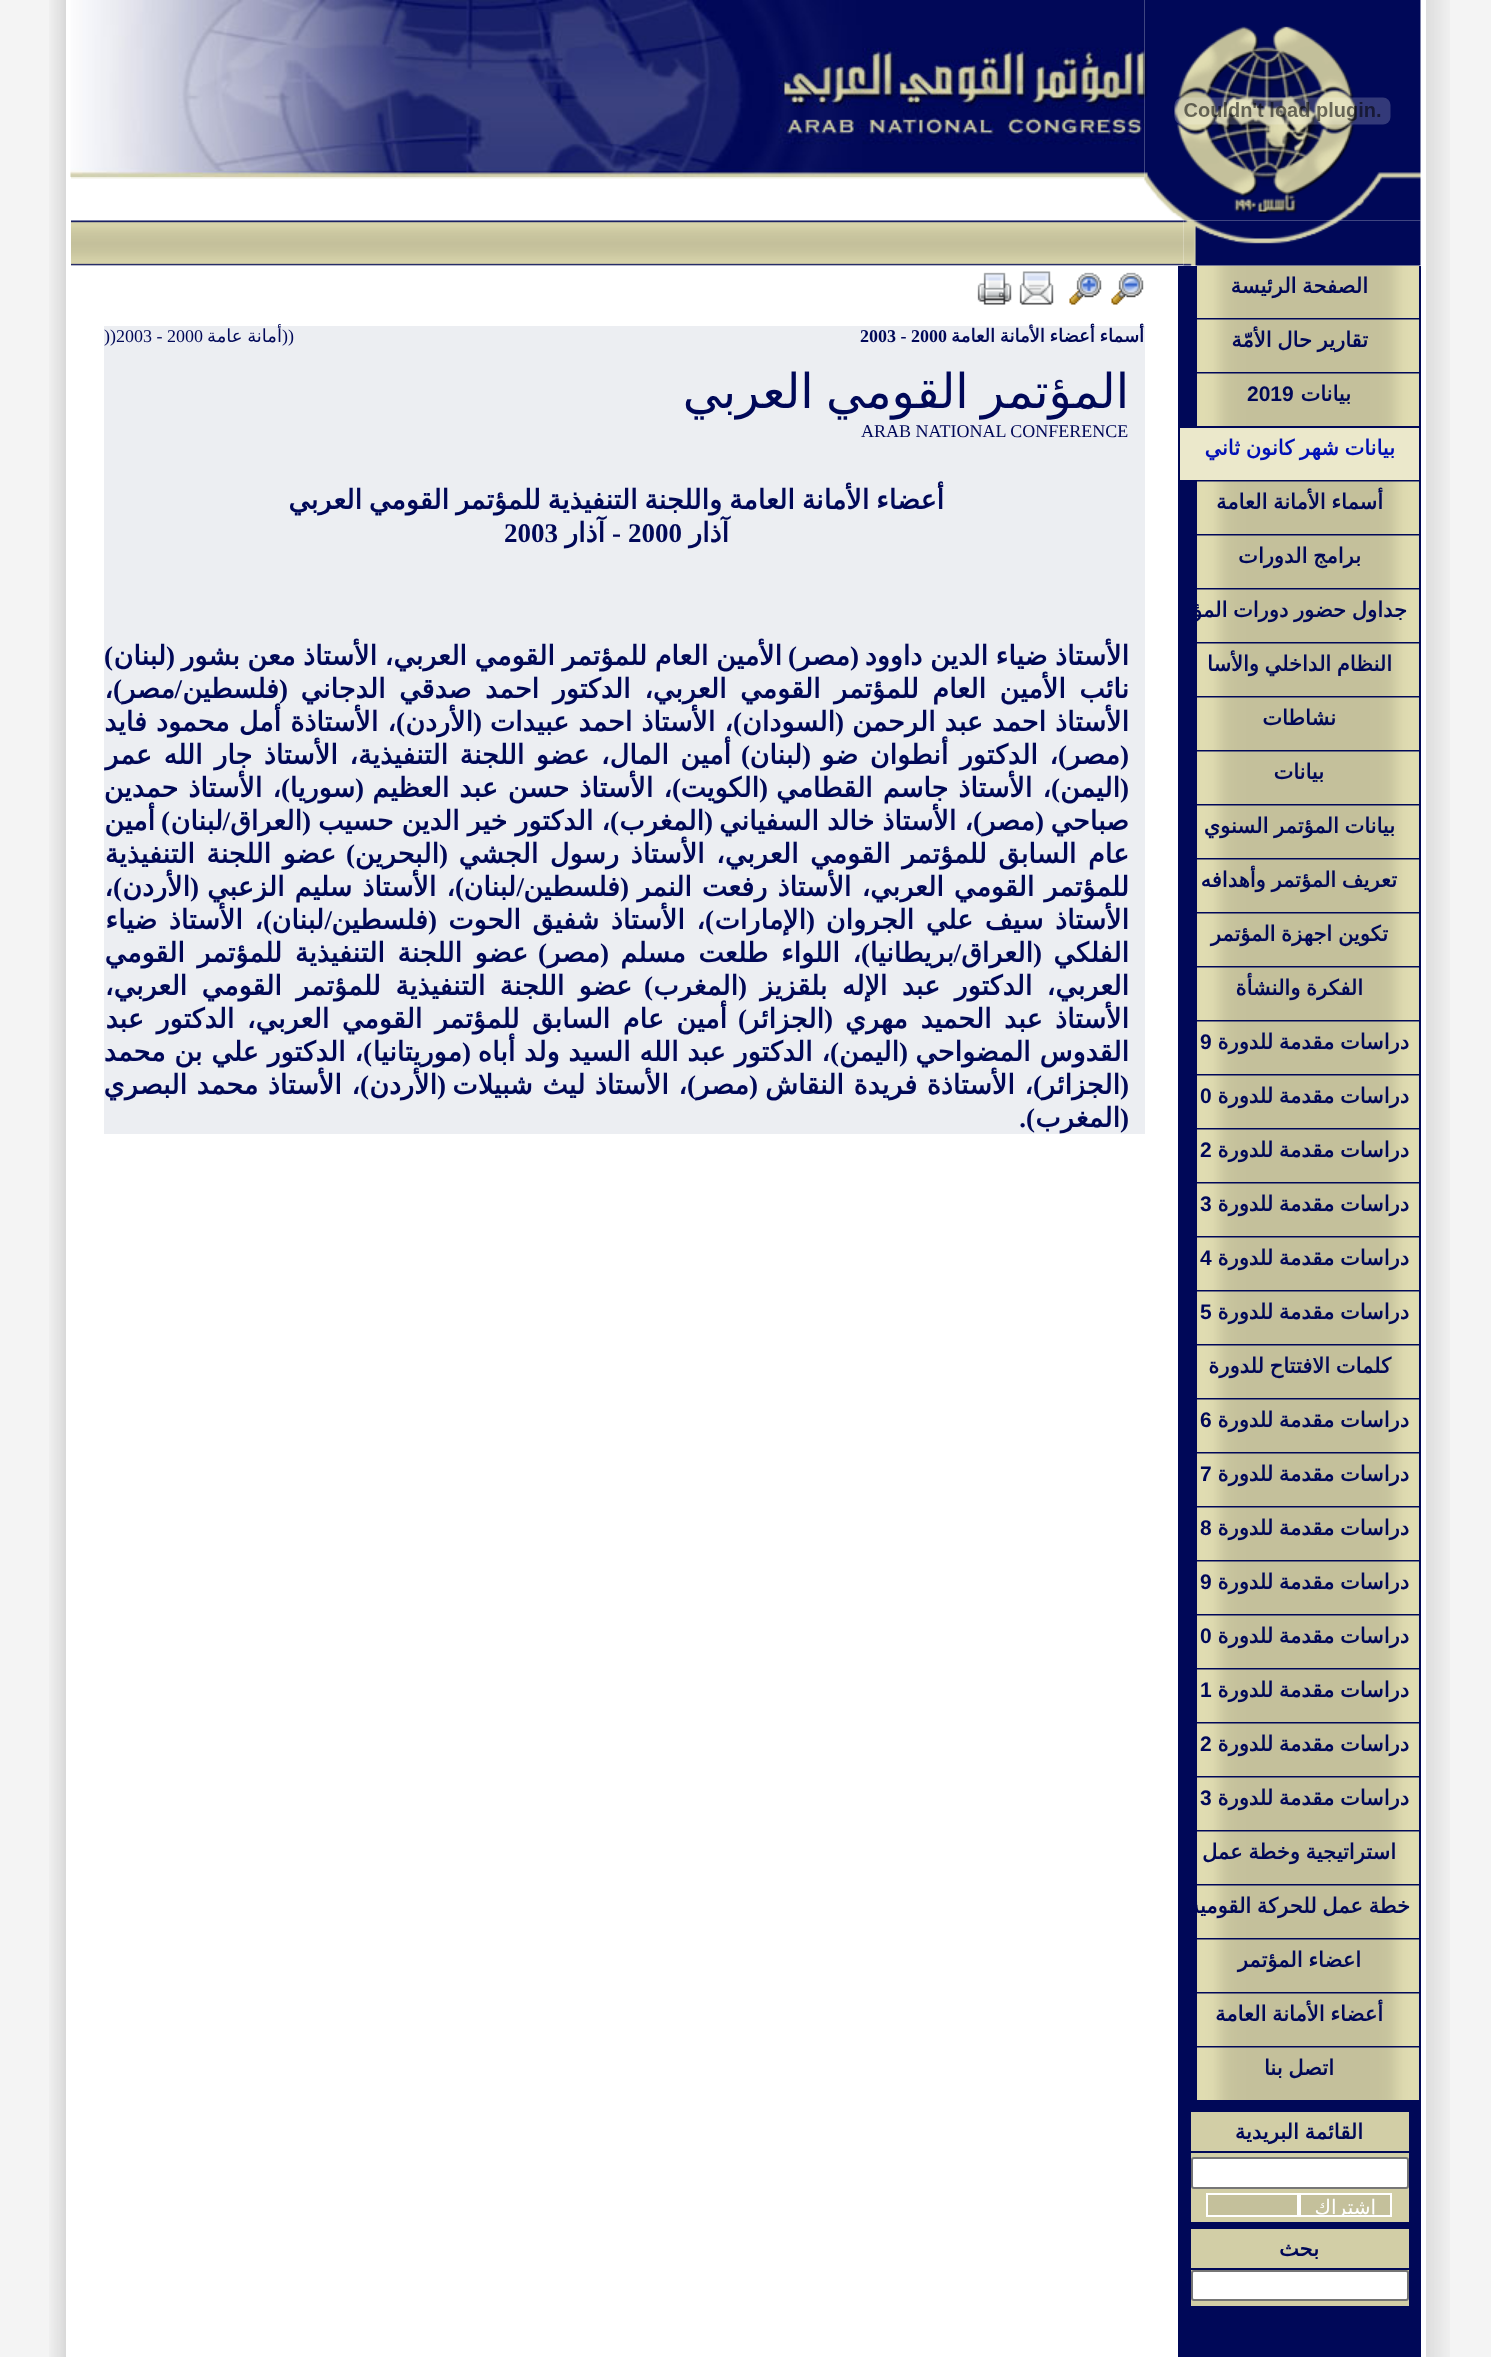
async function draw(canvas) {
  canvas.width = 1491
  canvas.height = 2357
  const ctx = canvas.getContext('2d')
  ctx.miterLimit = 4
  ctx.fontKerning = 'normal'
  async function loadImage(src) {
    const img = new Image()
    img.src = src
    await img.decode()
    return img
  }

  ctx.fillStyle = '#fff'
  ctx.fillRect(0, 0, 1491, 2357)
  ctx.fillStyle = '#f4f4f4'
  ctx.fillRect(1450, 0, 41, 2357)
  ctx.drawImage(await loadImage('image0.png'), 1426, 0, 24, 2357)
  ctx.drawImage(await loadImage('image4.png'), 71, 177, 1074, 2)
  ctx.drawImage(await loadImage('image1.png'), 1144, 0, 277, 221)
  ctx.drawImage(await loadImage('image2.png'), 1174, 97, 217, 28)
  ctx.drawImage(await loadImage('image3.png'), 70, 0, 1075, 177)
  ctx.drawImage(await loadImage('image6.png'), 71, 220, 1113, 46)
  ctx.fillStyle = '#000858'
  ctx.fillRect(1178, 266, 243, 2091)
  ctx.drawImage(await loadImage('image7.png'), 1197, 265, 222, 53)
  ctx.drawImage(await loadImage('image5.png'), 1183, 220, 238, 46)
  ctx.wordSpacing = '-1px'
  ctx.direction = 'rtl'
  ctx.font = 'bold 21px DejaVu Sans'
  ctx.fillText('الصفحة الرئيسة', 1368, 293)
  ctx.drawImage(await loadImage('image8.png'), 1197, 319, 222, 53)
  ctx.fillText('تقارير حال الأمّة', 1368, 347)
  ctx.drawImage(await loadImage('image8.png'), 1197, 373, 222, 53)
  ctx.wordSpacing = '0px'
  ctx.fillText('بيانات', 1351, 401)
  ctx.direction = 'ltr'
  ctx.font = 'bold 21px Liberation Sans'
  ctx.fillText('2019', 1247, 401)
  ctx.fillStyle = '#ebe8cb'
  ctx.fillRect(1180, 428, 239, 52)
  ctx.wordSpacing = '-1px'
  ctx.direction = 'rtl'
  ctx.font = 'bold 21px DejaVu Sans'
  ctx.fillStyle = '#000fb7'
  ctx.fillText('بيانات شهر كانون ثاني', 1395, 455)
  ctx.drawImage(await loadImage('image8.png'), 1197, 481, 222, 53)
  ctx.fillStyle = '#000858'
  ctx.fillText('أسماء الأمانة العامة', 1383, 509)
  ctx.drawImage(await loadImage('image8.png'), 1197, 535, 222, 53)
  ctx.fillText('برامج الدورات', 1361, 563)
  ctx.drawImage(await loadImage('image8.png'), 1197, 589, 222, 53)
  ctx.fillText('جداول حضور دورات المؤ', 1407, 617)
  ctx.drawImage(await loadImage('image8.png'), 1197, 643, 222, 53)
  ctx.fillText('النظام الداخلي والأسا', 1392, 671)
  ctx.drawImage(await loadImage('image8.png'), 1197, 697, 222, 53)
  ctx.wordSpacing = '0px'
  ctx.fillText('نشاطات', 1336, 725)
  ctx.drawImage(await loadImage('image8.png'), 1197, 751, 222, 53)
  ctx.fillText('بيانات', 1324, 779)
  ctx.drawImage(await loadImage('image8.png'), 1197, 805, 222, 53)
  ctx.wordSpacing = '-1px'
  ctx.fillText('بيانات المؤتمر السنوي', 1395, 833)
  ctx.drawImage(await loadImage('image8.png'), 1197, 859, 222, 53)
  ctx.fillText('تعريف المؤتمر وأهدافه', 1397, 887)
  ctx.drawImage(await loadImage('image8.png'), 1197, 913, 222, 53)
  ctx.fillText('تكوين اجهزة المؤتمر', 1388, 941)
  ctx.drawImage(await loadImage('image8.png'), 1197, 967, 222, 53)
  ctx.fillText('الفكرة والنشأة', 1363, 995)
  ctx.drawImage(await loadImage('image8.png'), 1197, 1021, 222, 53)
  ctx.fillText('دراسات مقدمة للدورة', 1409, 1049)
  ctx.wordSpacing = '0px'
  ctx.direction = 'ltr'
  ctx.font = 'bold 21px Liberation Sans'
  ctx.fillText('9', 1200, 1049)
  ctx.drawImage(await loadImage('image8.png'), 1197, 1075, 222, 53)
  ctx.wordSpacing = '-1px'
  ctx.direction = 'rtl'
  ctx.font = 'bold 21px DejaVu Sans'
  ctx.fillText('دراسات مقدمة للدورة', 1409, 1103)
  ctx.wordSpacing = '0px'
  ctx.direction = 'ltr'
  ctx.font = 'bold 21px Liberation Sans'
  ctx.fillText('0', 1200, 1103)
  ctx.drawImage(await loadImage('image8.png'), 1197, 1129, 222, 53)
  ctx.wordSpacing = '-1px'
  ctx.direction = 'rtl'
  ctx.font = 'bold 21px DejaVu Sans'
  ctx.fillText('دراسات مقدمة للدورة', 1409, 1157)
  ctx.wordSpacing = '0px'
  ctx.direction = 'ltr'
  ctx.font = 'bold 21px Liberation Sans'
  ctx.fillText('2', 1200, 1157)
  ctx.drawImage(await loadImage('image8.png'), 1197, 1183, 222, 53)
  ctx.wordSpacing = '-1px'
  ctx.direction = 'rtl'
  ctx.font = 'bold 21px DejaVu Sans'
  ctx.fillText('دراسات مقدمة للدورة', 1409, 1211)
  ctx.wordSpacing = '0px'
  ctx.direction = 'ltr'
  ctx.font = 'bold 21px Liberation Sans'
  ctx.fillText('3', 1200, 1211)
  ctx.drawImage(await loadImage('image8.png'), 1197, 1237, 222, 53)
  ctx.wordSpacing = '-1px'
  ctx.direction = 'rtl'
  ctx.font = 'bold 21px DejaVu Sans'
  ctx.fillText('دراسات مقدمة للدورة', 1409, 1265)
  ctx.wordSpacing = '0px'
  ctx.direction = 'ltr'
  ctx.font = 'bold 21px Liberation Sans'
  ctx.fillText('4', 1200, 1265)
  ctx.drawImage(await loadImage('image8.png'), 1197, 1291, 222, 53)
  ctx.wordSpacing = '-1px'
  ctx.direction = 'rtl'
  ctx.font = 'bold 21px DejaVu Sans'
  ctx.fillText('دراسات مقدمة للدورة', 1409, 1319)
  ctx.wordSpacing = '0px'
  ctx.direction = 'ltr'
  ctx.font = 'bold 21px Liberation Sans'
  ctx.fillText('5', 1200, 1319)
  ctx.drawImage(await loadImage('image8.png'), 1197, 1345, 222, 53)
  ctx.wordSpacing = '-1px'
  ctx.direction = 'rtl'
  ctx.font = 'bold 21px DejaVu Sans'
  ctx.fillText('كلمات الافتتاح للدورة', 1391, 1373)
  ctx.drawImage(await loadImage('image8.png'), 1197, 1399, 222, 53)
  ctx.fillText('دراسات مقدمة للدورة', 1409, 1427)
  ctx.wordSpacing = '0px'
  ctx.direction = 'ltr'
  ctx.font = 'bold 21px Liberation Sans'
  ctx.fillText('6', 1200, 1427)
  ctx.drawImage(await loadImage('image8.png'), 1197, 1453, 222, 53)
  ctx.wordSpacing = '-1px'
  ctx.direction = 'rtl'
  ctx.font = 'bold 21px DejaVu Sans'
  ctx.fillText('دراسات مقدمة للدورة', 1409, 1481)
  ctx.wordSpacing = '0px'
  ctx.direction = 'ltr'
  ctx.font = 'bold 21px Liberation Sans'
  ctx.fillText('7', 1200, 1481)
  ctx.drawImage(await loadImage('image8.png'), 1197, 1507, 222, 53)
  ctx.wordSpacing = '-1px'
  ctx.direction = 'rtl'
  ctx.font = 'bold 21px DejaVu Sans'
  ctx.fillText('دراسات مقدمة للدورة', 1409, 1535)
  ctx.wordSpacing = '0px'
  ctx.direction = 'ltr'
  ctx.font = 'bold 21px Liberation Sans'
  ctx.fillText('8', 1200, 1535)
  ctx.drawImage(await loadImage('image8.png'), 1197, 1561, 222, 53)
  ctx.wordSpacing = '-1px'
  ctx.direction = 'rtl'
  ctx.font = 'bold 21px DejaVu Sans'
  ctx.fillText('دراسات مقدمة للدورة', 1409, 1589)
  ctx.wordSpacing = '0px'
  ctx.direction = 'ltr'
  ctx.font = 'bold 21px Liberation Sans'
  ctx.fillText('9', 1200, 1589)
  ctx.drawImage(await loadImage('image8.png'), 1197, 1615, 222, 53)
  ctx.wordSpacing = '-1px'
  ctx.direction = 'rtl'
  ctx.font = 'bold 21px DejaVu Sans'
  ctx.fillText('دراسات مقدمة للدورة', 1409, 1643)
  ctx.wordSpacing = '0px'
  ctx.direction = 'ltr'
  ctx.font = 'bold 21px Liberation Sans'
  ctx.fillText('0', 1200, 1643)
  ctx.drawImage(await loadImage('image8.png'), 1197, 1669, 222, 53)
  ctx.wordSpacing = '-1px'
  ctx.direction = 'rtl'
  ctx.font = 'bold 21px DejaVu Sans'
  ctx.fillText('دراسات مقدمة للدورة', 1409, 1697)
  ctx.wordSpacing = '0px'
  ctx.direction = 'ltr'
  ctx.font = 'bold 21px Liberation Sans'
  ctx.fillText('1', 1200, 1697)
  ctx.drawImage(await loadImage('image8.png'), 1197, 1723, 222, 53)
  ctx.wordSpacing = '-1px'
  ctx.direction = 'rtl'
  ctx.font = 'bold 21px DejaVu Sans'
  ctx.fillText('دراسات مقدمة للدورة', 1409, 1751)
  ctx.wordSpacing = '0px'
  ctx.direction = 'ltr'
  ctx.font = 'bold 21px Liberation Sans'
  ctx.fillText('2', 1200, 1751)
  ctx.drawImage(await loadImage('image8.png'), 1197, 1777, 222, 53)
  ctx.wordSpacing = '-1px'
  ctx.direction = 'rtl'
  ctx.font = 'bold 21px DejaVu Sans'
  ctx.fillText('دراسات مقدمة للدورة', 1409, 1805)
  ctx.wordSpacing = '0px'
  ctx.direction = 'ltr'
  ctx.font = 'bold 21px Liberation Sans'
  ctx.fillText('3', 1200, 1805)
  ctx.drawImage(await loadImage('image8.png'), 1197, 1831, 222, 53)
  ctx.wordSpacing = '-1px'
  ctx.direction = 'rtl'
  ctx.font = 'bold 21px DejaVu Sans'
  ctx.fillText('استراتيجية وخطة عمل', 1396, 1859)
  ctx.drawImage(await loadImage('image8.png'), 1197, 1885, 222, 53)
  ctx.fillText('خطة عمل للحركة القومية', 1410, 1913)
  ctx.drawImage(await loadImage('image8.png'), 1197, 1939, 222, 53)
  ctx.fillText('اعضاء المؤتمر', 1361, 1967)
  ctx.drawImage(await loadImage('image8.png'), 1197, 1993, 222, 53)
  ctx.fillText('أعضاء الأمانة العامة', 1383, 2021)
  ctx.drawImage(await loadImage('image8.png'), 1197, 2047, 222, 53)
  ctx.fillText('اتصل بنا', 1334, 2075)
  ctx.fillStyle = '#d2cea6'
  ctx.fillRect(1191, 2112, 218, 39)
  ctx.fillStyle = '#000858'
  ctx.fillText('القائمة البريدية', 1363, 2139)
  ctx.fillStyle = '#d2cea6'
  ctx.fillRect(1191, 2153, 218, 69)
  ctx.fillStyle = '#fff'
  ctx.beginPath()
  ctx.roundRect(1192, 2158, 216, 30, 2)
  ctx.fill()
  ctx.strokeStyle = '#767676'
  ctx.lineWidth = 2
  ctx.stroke()
  ctx.fillStyle = '#c4c09b'
  ctx.beginPath()
  ctx.rect(1300, 2194, 91, 22)
  ctx.fill()
  ctx.strokeStyle = '#fff'
  ctx.stroke()
  ctx.save()
  ctx.beginPath()
  ctx.rect(1301, 2195, 90, 21)
  ctx.clip()
  ctx.wordSpacing = '0px'
  ctx.font = '20px DejaVu Sans'
  ctx.fillStyle = '#fff'
  ctx.fillText('إشتراك', 1376, 2214)
  ctx.restore()
  ctx.beginPath()
  ctx.rect(1207, 2194, 91, 22)
  ctx.fill()
  ctx.stroke()
  ctx.fillStyle = '#d2cea6'
  ctx.fillRect(1191, 2229, 218, 39)
  ctx.wordSpacing = '0px'
  ctx.fillStyle = '#000858'
  ctx.fillText('بحث', 1319, 2256)
  ctx.fillStyle = '#d2cea6'
  ctx.fillRect(1191, 2270, 218, 36)
  ctx.fillStyle = '#fff'
  ctx.beginPath()
  ctx.roundRect(1192, 2271, 216, 29, 2)
  ctx.fill()
  ctx.strokeStyle = '#767676'
  ctx.stroke()
  ctx.drawImage(await loadImage('image9.png'), 1111, 272, 33, 33)
  ctx.drawImage(await loadImage('image10.png'), 1069, 272, 33, 33)
  ctx.drawImage(await loadImage('image11.png'), 1019, 271, 35, 34)
  ctx.drawImage(await loadImage('image12.png'), 977, 272, 35, 33)
  ctx.fillStyle = '#eceef2'
  ctx.fillRect(104, 326, 1041, 808)
  ctx.wordSpacing = '-1px'
  ctx.font = 'bold 18px DejaVu Sans'
  ctx.fillStyle = '#000858'
  ctx.fillText('أسماء أعضاء الأمانة العامة', 1144, 342)
  ctx.wordSpacing = '0px'
  ctx.direction = 'ltr'
  ctx.font = 'bold 18px Liberation Serif'
  ctx.fillText('2003 - 2000', 860, 342)
  ctx.direction = 'rtl'
  ctx.font = '18px Liberation Serif'
  ctx.fillText('((', 294, 342)
  ctx.wordSpacing = '-1px'
  ctx.font = '18px DejaVu Sans'
  ctx.fillText('أمانة عامة', 282, 342)
  ctx.wordSpacing = '0px'
  ctx.direction = 'ltr'
  ctx.font = '18px Liberation Serif'
  ctx.fillText('))2003 - 2000', 104, 342)
  ctx.wordSpacing = '-3px'
  ctx.direction = 'rtl'
  ctx.font = '48px DejaVu Sans'
  ctx.fillText('المؤتمر القومي العربي', 1129, 408)
  ctx.wordSpacing = '0px'
  ctx.direction = 'ltr'
  ctx.font = '18px Liberation Serif'
  ctx.fillText('ARAB NATIONAL CONFERENCE', 861, 437)
  ctx.wordSpacing = '-1.75px'
  ctx.direction = 'rtl'
  ctx.font = 'bold 27px DejaVu Sans'
  ctx.fillText('أعضاء الأمانة العامة واللجنة التنفيذية للمؤتمر القومي العربي', 944, 509)
  ctx.wordSpacing = '0px'
  ctx.fillText('آذار', 729, 542)
  ctx.direction = 'ltr'
  ctx.font = 'bold 27px Liberation Serif'
  ctx.fillText('2000', 628, 542)
  ctx.direction = 'rtl'
  ctx.fillText('-', 621, 542)
  ctx.font = 'bold 27px DejaVu Sans'
  ctx.fillText('آذار', 605, 542)
  ctx.direction = 'ltr'
  ctx.font = 'bold 27px Liberation Serif'
  ctx.fillText('2003', 504, 542)
  ctx.wordSpacing = '-1px'
  ctx.direction = 'rtl'
  ctx.font = 'bold 27px DejaVu Sans'
  ctx.fillText('الأستاذ ضياء الدين داوود', 1129, 665)
  ctx.wordSpacing = '0px'
  ctx.font = 'bold 27px Liberation Serif'
  ctx.fillText('(', 859, 665)
  ctx.fillText(')', 797, 665)
  ctx.font = 'bold 27px DejaVu Sans'
  ctx.fillText('مصر', 850, 665)
  ctx.wordSpacing = '-1px'
  ctx.fillText('الأمين العام للمؤتمر القومي العربي، الأستاذ معن بشور', 782, 665)
  ctx.wordSpacing = '0px'
  ctx.font = 'bold 27px Liberation Serif'
  ctx.fillText('(', 175, 665)
  ctx.font = 'bold 27px DejaVu Sans'
  ctx.fillText('لبنان', 166, 665)
  ctx.font = 'bold 27px Liberation Serif'
  ctx.fillText(')', 113, 665)
  ctx.wordSpacing = '5px'
  ctx.font = 'bold 27px DejaVu Sans'
  ctx.fillText('نائب الأمين العام للمؤتمر القومي العربي، الدكتور احمد صدقي الدجاني', 1129, 698)
  ctx.wordSpacing = '0px'
  ctx.font = 'bold 27px Liberation Serif'
  ctx.fillText('(', 288, 698)
  ctx.font = 'bold 27px DejaVu Sans'
  ctx.fillText('فلسطين', 279, 698)
  ctx.font = 'bold 27px Liberation Serif'
  ctx.fillText('/', 182, 698)
  ctx.fillText(')', 122, 698)
  ctx.font = 'bold 27px DejaVu Sans'
  ctx.fillText('مصر', 175, 698)
  ctx.fillText('،', 113, 698)
  ctx.wordSpacing = '0.5px'
  ctx.fillText('الأستاذ احمد عبد الرحمن', 1129, 731)
  ctx.wordSpacing = '0px'
  ctx.font = 'bold 27px Liberation Serif'
  ctx.fillText('(', 844, 731)
  ctx.font = 'bold 27px DejaVu Sans'
  ctx.fillText('السودان', 835, 731)
  ctx.font = 'bold 27px Liberation Serif'
  ctx.fillText(')', 742, 731)
  ctx.wordSpacing = '0.5px'
  ctx.font = 'bold 27px DejaVu Sans'
  ctx.fillText('، الأستاذ احمد عبيدات', 733, 731)
  ctx.wordSpacing = '0px'
  ctx.font = 'bold 27px Liberation Serif'
  ctx.fillText('(', 482, 731)
  ctx.font = 'bold 27px DejaVu Sans'
  ctx.fillText('الأردن', 473, 731)
  ctx.font = 'bold 27px Liberation Serif'
  ctx.fillText(')', 405, 731)
  ctx.wordSpacing = '0.5px'
  ctx.font = 'bold 27px DejaVu Sans'
  ctx.fillText('، الأستاذة أمل محمود فايد', 396, 731)
  ctx.wordSpacing = '0px'
  ctx.font = 'bold 27px Liberation Serif'
  ctx.fillText('(', 1129, 764)
  ctx.fillText(')', 1067, 764)
  ctx.font = 'bold 27px DejaVu Sans'
  ctx.fillText('مصر', 1120, 764)
  ctx.wordSpacing = '3px'
  ctx.fillText('، الدكتور أنطوان ضو', 1058, 764)
  ctx.wordSpacing = '0px'
  ctx.font = 'bold 27px Liberation Serif'
  ctx.fillText('(', 811, 764)
  ctx.font = 'bold 27px DejaVu Sans'
  ctx.fillText('لبنان', 802, 764)
  ctx.font = 'bold 27px Liberation Serif'
  ctx.fillText(')', 750, 764)
  ctx.wordSpacing = '3px'
  ctx.font = 'bold 27px DejaVu Sans'
  ctx.fillText('أمين المال، عضو اللجنة التنفيذية، الأستاذ جار الله عمر', 731, 764)
  ctx.wordSpacing = '0px'
  ctx.font = 'bold 27px Liberation Serif'
  ctx.fillText('(', 1129, 797)
  ctx.font = 'bold 27px DejaVu Sans'
  ctx.fillText('اليمن', 1120, 797)
  ctx.font = 'bold 27px Liberation Serif'
  ctx.fillText(')', 1060, 797)
  ctx.wordSpacing = '1.5px'
  ctx.font = 'bold 27px DejaVu Sans'
  ctx.fillText('، الأستاذ جاسم القطامي', 1051, 797)
  ctx.wordSpacing = '0px'
  ctx.font = 'bold 27px Liberation Serif'
  ctx.fillText('(', 768, 797)
  ctx.font = 'bold 27px DejaVu Sans'
  ctx.fillText('الكويت', 759, 797)
  ctx.font = 'bold 27px Liberation Serif'
  ctx.fillText(')', 681, 797)
  ctx.wordSpacing = '1.5px'
  ctx.font = 'bold 27px DejaVu Sans'
  ctx.fillText('، الأستاذ حسن عبد العظيم', 672, 797)
  ctx.wordSpacing = '0px'
  ctx.font = 'bold 27px Liberation Serif'
  ctx.fillText('(', 364, 797)
  ctx.font = 'bold 27px DejaVu Sans'
  ctx.fillText('سوريا', 355, 797)
  ctx.font = 'bold 27px Liberation Serif'
  ctx.fillText(')', 290, 797)
  ctx.wordSpacing = '1.5px'
  ctx.font = 'bold 27px DejaVu Sans'
  ctx.fillText('، الأستاذ حمدين', 281, 797)
  ctx.wordSpacing = '0px'
  ctx.fillText('صباحي', 1129, 830)
  ctx.font = 'bold 27px Liberation Serif'
  ctx.fillText('(', 1044, 830)
  ctx.fillText(')', 982, 830)
  ctx.font = 'bold 27px DejaVu Sans'
  ctx.fillText('مصر', 1035, 830)
  ctx.wordSpacing = '-0.5px'
  ctx.fillText('، الأستاذ خالد السفياني', 973, 830)
  ctx.wordSpacing = '0px'
  ctx.font = 'bold 27px Liberation Serif'
  ctx.fillText('(', 713, 830)
  ctx.font = 'bold 27px DejaVu Sans'
  ctx.fillText('المغرب', 704, 830)
  ctx.font = 'bold 27px Liberation Serif'
  ctx.fillText(')', 619, 830)
  ctx.wordSpacing = '-0.5px'
  ctx.font = 'bold 27px DejaVu Sans'
  ctx.fillText('، الدكتور خير الدين حسيب', 610, 830)
  ctx.wordSpacing = '0px'
  ctx.font = 'bold 27px Liberation Serif'
  ctx.fillText('(', 311, 830)
  ctx.font = 'bold 27px DejaVu Sans'
  ctx.fillText('العراق', 302, 830)
  ctx.font = 'bold 27px Liberation Serif'
  ctx.fillText('/', 230, 830)
  ctx.font = 'bold 27px DejaVu Sans'
  ctx.fillText('لبنان', 223, 830)
  ctx.font = 'bold 27px Liberation Serif'
  ctx.fillText(')', 170, 830)
  ctx.font = 'bold 27px DejaVu Sans'
  ctx.fillText('أمين', 155, 830)
  ctx.wordSpacing = '3px'
  ctx.fillText('عام السابق للمؤتمر القومي العربي، الأستاذ رسول الجشي', 1129, 863)
  ctx.wordSpacing = '0px'
  ctx.font = 'bold 27px Liberation Serif'
  ctx.fillText('(', 448, 863)
  ctx.font = 'bold 27px DejaVu Sans'
  ctx.fillText('البحرين', 439, 863)
  ctx.font = 'bold 27px Liberation Serif'
  ctx.fillText(')', 355, 863)
  ctx.wordSpacing = '3px'
  ctx.font = 'bold 27px DejaVu Sans'
  ctx.fillText('عضو اللجنة التنفيذية', 336, 863)
  ctx.wordSpacing = '1.5px'
  ctx.fillText('للمؤتمر القومي العربي، الأستاذ رفعت النمر', 1129, 896)
  ctx.wordSpacing = '0px'
  ctx.font = 'bold 27px Liberation Serif'
  ctx.fillText('(', 629, 896)
  ctx.font = 'bold 27px DejaVu Sans'
  ctx.fillText('فلسطين', 620, 896)
  ctx.font = 'bold 27px Liberation Serif'
  ctx.fillText('/', 524, 896)
  ctx.font = 'bold 27px DejaVu Sans'
  ctx.fillText('لبنان', 516, 896)
  ctx.font = 'bold 27px Liberation Serif'
  ctx.fillText(')', 464, 896)
  ctx.wordSpacing = '1.5px'
  ctx.font = 'bold 27px DejaVu Sans'
  ctx.fillText('، الأستاذ سليم الزعبي', 455, 896)
  ctx.wordSpacing = '0px'
  ctx.font = 'bold 27px Liberation Serif'
  ctx.fillText('(', 199, 896)
  ctx.font = 'bold 27px DejaVu Sans'
  ctx.fillText('الأردن', 190, 896)
  ctx.font = 'bold 27px Liberation Serif'
  ctx.fillText(')', 122, 896)
  ctx.font = 'bold 27px DejaVu Sans'
  ctx.fillText('،', 113, 896)
  ctx.wordSpacing = '3px'
  ctx.fillText('الأستاذ سيف علي الجروان', 1129, 929)
  ctx.wordSpacing = '0px'
  ctx.font = 'bold 27px Liberation Serif'
  ctx.fillText('(', 815, 929)
  ctx.font = 'bold 27px DejaVu Sans'
  ctx.fillText('الإمارات', 806, 929)
  ctx.font = 'bold 27px Liberation Serif'
  ctx.fillText(')', 714, 929)
  ctx.wordSpacing = '3px'
  ctx.font = 'bold 27px DejaVu Sans'
  ctx.fillText('، الأستاذ شفيق الحوت', 705, 929)
  ctx.wordSpacing = '0px'
  ctx.font = 'bold 27px Liberation Serif'
  ctx.fillText('(', 437, 929)
  ctx.font = 'bold 27px DejaVu Sans'
  ctx.fillText('فلسطين', 428, 929)
  ctx.font = 'bold 27px Liberation Serif'
  ctx.fillText('/', 332, 929)
  ctx.font = 'bold 27px DejaVu Sans'
  ctx.fillText('لبنان', 324, 929)
  ctx.font = 'bold 27px Liberation Serif'
  ctx.fillText(')', 272, 929)
  ctx.wordSpacing = '3px'
  ctx.font = 'bold 27px DejaVu Sans'
  ctx.fillText('، الأستاذ ضياء', 263, 929)
  ctx.wordSpacing = '0px'
  ctx.fillText('الفلكي', 1129, 962)
  ctx.font = 'bold 27px Liberation Serif'
  ctx.fillText('(', 1042, 962)
  ctx.font = 'bold 27px DejaVu Sans'
  ctx.fillText('العراق', 1033, 962)
  ctx.font = 'bold 27px Liberation Serif'
  ctx.fillText('/', 961, 962)
  ctx.font = 'bold 27px DejaVu Sans'
  ctx.fillText('بريطانيا', 954, 962)
  ctx.font = 'bold 27px Liberation Serif'
  ctx.fillText(')', 870, 962)
  ctx.wordSpacing = '4px'
  ctx.font = 'bold 27px DejaVu Sans'
  ctx.fillText('، اللواء طلعت مسلم', 861, 962)
  ctx.wordSpacing = '0px'
  ctx.font = 'bold 27px Liberation Serif'
  ctx.fillText('(', 609, 962)
  ctx.fillText(')', 547, 962)
  ctx.font = 'bold 27px DejaVu Sans'
  ctx.fillText('مصر', 600, 962)
  ctx.wordSpacing = '4px'
  ctx.fillText('عضو اللجنة التنفيذية للمؤتمر القومي', 528, 962)
  ctx.wordSpacing = '5.75px'
  ctx.fillText('العربي، الدكتور عبد الإله بلقزيز', 1129, 995)
  ctx.wordSpacing = '0px'
  ctx.font = 'bold 27px Liberation Serif'
  ctx.fillText('(', 747, 995)
  ctx.font = 'bold 27px DejaVu Sans'
  ctx.fillText('المغرب', 738, 995)
  ctx.font = 'bold 27px Liberation Serif'
  ctx.fillText(')', 653, 995)
  ctx.wordSpacing = '5.75px'
  ctx.font = 'bold 27px DejaVu Sans'
  ctx.fillText('عضو اللجنة التنفيذية للمؤتمر القومي العربي،', 632, 995)
  ctx.wordSpacing = '4px'
  ctx.fillText('الأستاذ عبد الحميد مهري', 1129, 1028)
  ctx.wordSpacing = '0px'
  ctx.font = 'bold 27px Liberation Serif'
  ctx.fillText('(', 833, 1028)
  ctx.fillText(')', 747, 1028)
  ctx.font = 'bold 27px DejaVu Sans'
  ctx.fillText('الجزائر', 824, 1028)
  ctx.wordSpacing = '4px'
  ctx.fillText('أمين عام السابق للمؤتمر القومي العربي، الدكتور عبد', 727, 1028)
  ctx.wordSpacing = '0.25px'
  ctx.fillText('القدوس المضواحي', 1129, 1061)
  ctx.wordSpacing = '0px'
  ctx.font = 'bold 27px Liberation Serif'
  ctx.fillText('(', 908, 1061)
  ctx.font = 'bold 27px DejaVu Sans'
  ctx.fillText('اليمن', 899, 1061)
  ctx.font = 'bold 27px Liberation Serif'
  ctx.fillText(')', 839, 1061)
  ctx.wordSpacing = '0.25px'
  ctx.font = 'bold 27px DejaVu Sans'
  ctx.fillText('، الدكتور عبد الله السيد ولد أباه', 830, 1061)
  ctx.wordSpacing = '0px'
  ctx.font = 'bold 27px Liberation Serif'
  ctx.fillText('(', 471, 1061)
  ctx.font = 'bold 27px DejaVu Sans'
  ctx.fillText('موريتانيا', 462, 1061)
  ctx.font = 'bold 27px Liberation Serif'
  ctx.fillText(')', 372, 1061)
  ctx.wordSpacing = '0.25px'
  ctx.font = 'bold 27px DejaVu Sans'
  ctx.fillText('، الدكتور علي بن محمد', 363, 1061)
  ctx.wordSpacing = '0px'
  ctx.font = 'bold 27px Liberation Serif'
  ctx.fillText('(', 1129, 1094)
  ctx.fillText(')', 1042, 1094)
  ctx.font = 'bold 27px DejaVu Sans'
  ctx.fillText('الجزائر', 1120, 1094)
  ctx.wordSpacing = '1px'
  ctx.fillText('، الأستاذة فريدة النقاش', 1033, 1094)
  ctx.wordSpacing = '0px'
  ctx.font = 'bold 27px Liberation Serif'
  ctx.fillText('(', 758, 1094)
  ctx.fillText(')', 696, 1094)
  ctx.font = 'bold 27px DejaVu Sans'
  ctx.fillText('مصر', 749, 1094)
  ctx.wordSpacing = '1px'
  ctx.fillText('، الأستاذ ليث شبيلات', 687, 1094)
  ctx.wordSpacing = '0px'
  ctx.font = 'bold 27px Liberation Serif'
  ctx.fillText('(', 446, 1094)
  ctx.font = 'bold 27px DejaVu Sans'
  ctx.fillText('الأردن', 437, 1094)
  ctx.font = 'bold 27px Liberation Serif'
  ctx.fillText(')', 369, 1094)
  ctx.wordSpacing = '1px'
  ctx.font = 'bold 27px DejaVu Sans'
  ctx.fillText('، الأستاذ محمد البصري', 360, 1094)
  ctx.wordSpacing = '0px'
  ctx.font = 'bold 27px Liberation Serif'
  ctx.fillText('(', 1129, 1127)
  ctx.font = 'bold 27px DejaVu Sans'
  ctx.fillText('المغرب', 1120, 1127)
  ctx.font = 'bold 27px Liberation Serif'
  ctx.fillText(').', 1035, 1127)
  ctx.fillStyle = '#f4f4f4'
  ctx.fillRect(0, 0, 49, 2357)
  ctx.drawImage(await loadImage('image13.png'), 49, 0, 17, 2357)
}

draw(document.querySelector('canvas'))
